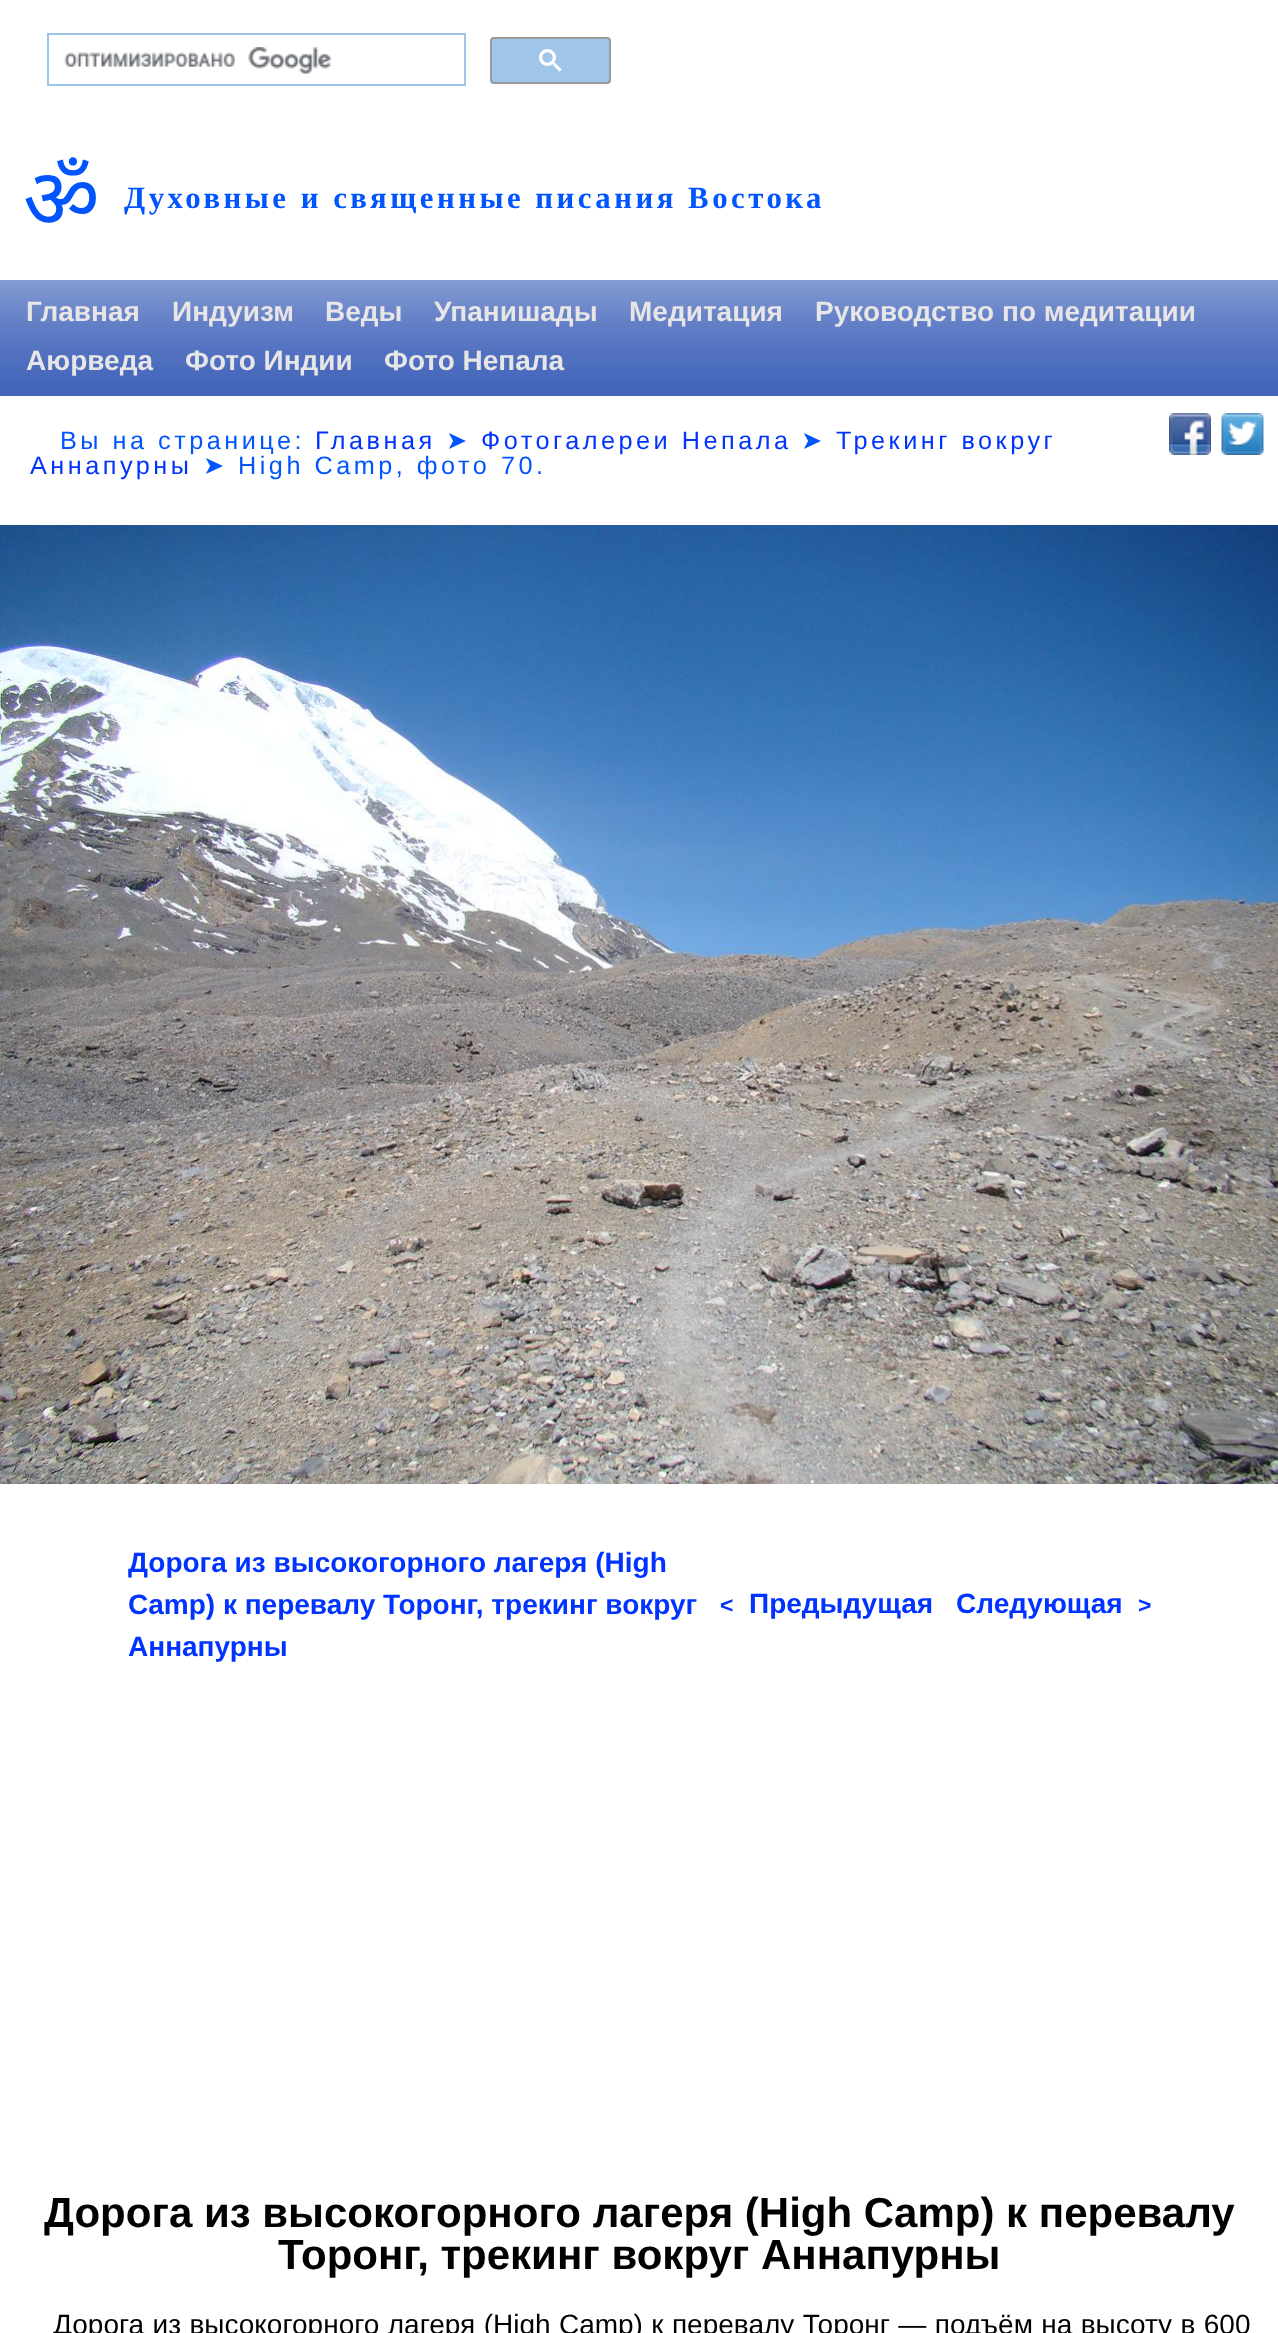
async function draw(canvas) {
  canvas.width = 1278
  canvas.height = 2333
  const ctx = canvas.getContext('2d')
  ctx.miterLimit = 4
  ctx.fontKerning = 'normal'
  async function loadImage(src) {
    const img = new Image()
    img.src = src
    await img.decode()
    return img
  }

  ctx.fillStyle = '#fff'
  ctx.fillRect(0, 0, 1278, 2333)
  ctx.strokeStyle = '#9fc5e8'
  ctx.lineWidth = 2
  ctx.strokeRect(48, 34, 417, 51)
  ctx.drawImage(await loadImage('image0.png'), 64, 47, 267, 27)
  ctx.fillStyle = '#9fc5e8'
  ctx.beginPath()
  ctx.roundRect(491, 38, 119, 45, 3)
  ctx.fill()
  ctx.strokeStyle = '#999'
  ctx.stroke()
  ctx.drawImage(await loadImage('image1.png'), 539, 49, 23, 23)
  ctx.letterSpacing = '3.5px'
  ctx.font = '84px Noto Sans'
  ctx.fillStyle = '#05f'
  ctx.fillText('ॐ', 23, 228)
  ctx.font = 'bold 30.8px Liberation Serif'
  ctx.fillText('Духовные и священные писания Востока', 124, 208)
  ctx.fillStyle = '#46b'
  ctx.fillRect(0, 280, 1278, 116)
  ctx.drawImage(await loadImage('image2.png'), 0, 280, 1278, 99)
  ctx.letterSpacing = '0px'
  ctx.font = 'bold 28px Liberation Sans'
  ctx.fillStyle = '#e7e5e5'
  ctx.fillText('Главная', 26, 321)
  ctx.fillText('Индуизм', 172, 321)
  ctx.fillText('Веды', 325, 321)
  ctx.fillText('Упанишады', 434, 321)
  ctx.fillText('Медитация', 629, 321)
  ctx.fillText('Руководство по медитации', 815, 321)
  ctx.fillText('Аюрведа', 26, 370)
  ctx.fillText('Фото Индии', 185, 370)
  ctx.fillText('Фото Непала', 384, 370)
  ctx.letterSpacing = '3.5px'
  ctx.font = '25.25px Liberation Sans'
  ctx.fillStyle = '#05f'
  ctx.fillText('Вы на странице:', 60, 449)
  ctx.fillStyle = '#03f'
  ctx.fillText('Главная', 315, 449)
  ctx.font = '25.25px DejaVu Sans'
  ctx.fillStyle = '#05f'
  ctx.fillText('➤', 446, 449)
  ctx.font = '25.25px Liberation Sans'
  ctx.fillStyle = '#03f'
  ctx.fillText('Фотогалереи Непала', 481, 449)
  ctx.font = '25.25px DejaVu Sans'
  ctx.fillStyle = '#05f'
  ctx.fillText('➤', 801, 449)
  ctx.font = '25.25px Liberation Sans'
  ctx.fillStyle = '#03f'
  ctx.fillText('Трекинг вокруг', 836, 449)
  ctx.fillText('Аннапурны', 30, 474)
  ctx.font = '25.25px DejaVu Sans'
  ctx.fillStyle = '#05f'
  ctx.fillText('➤', 203, 474)
  ctx.font = '25.25px Liberation Sans'
  ctx.fillText('High Camp, фото 70.', 238, 474)
  ctx.drawImage(await loadImage('image3.png'), 1169, 413, 42, 42)
  ctx.drawImage(await loadImage('image4.png'), 1221, 413, 43, 42)
  ctx.drawImage(await loadImage('image5.png'), 0, 525, 1278, 959)
  ctx.letterSpacing = '0px'
  ctx.font = 'bold 28px Liberation Sans'
  ctx.fillStyle = '#03f'
  ctx.fillText('Дорога из высокогорного лагеря (High', 128, 1572)
  ctx.fillText('Camp) к перевалу Торонг, трекинг вокруг', 128, 1614)
  ctx.fillText('Аннапурны', 128, 1656)
  ctx.font = 'bold 23px Liberation Sans'
  ctx.fillText('<', 720, 1613)
  ctx.font = 'bold 28px Liberation Sans'
  ctx.fillText('Предыдущая', 749, 1613)
  ctx.fillText('Следующая', 956, 1613)
  ctx.font = 'bold 23px Liberation Sans'
  ctx.fillText('>', 1138, 1613)
  ctx.font = 'bold 42px Liberation Sans'
  ctx.fillStyle = '#000'
  ctx.fillText('Дорога из высокогорного лагеря (High Camp) к перевалу', 44, 2227)
  ctx.fillText('Торонг, трекинг вокруг Аннапурны', 278, 2269)
  ctx.wordSpacing = '0.6px'
  ctx.font = '28px Liberation Sans'
  ctx.fillText('Дорога из высокогорного лагеря (High Camp) к перевалу Торонг — подъём на высоту в 600', 53, 2334)
}

draw(document.querySelector('canvas'))
